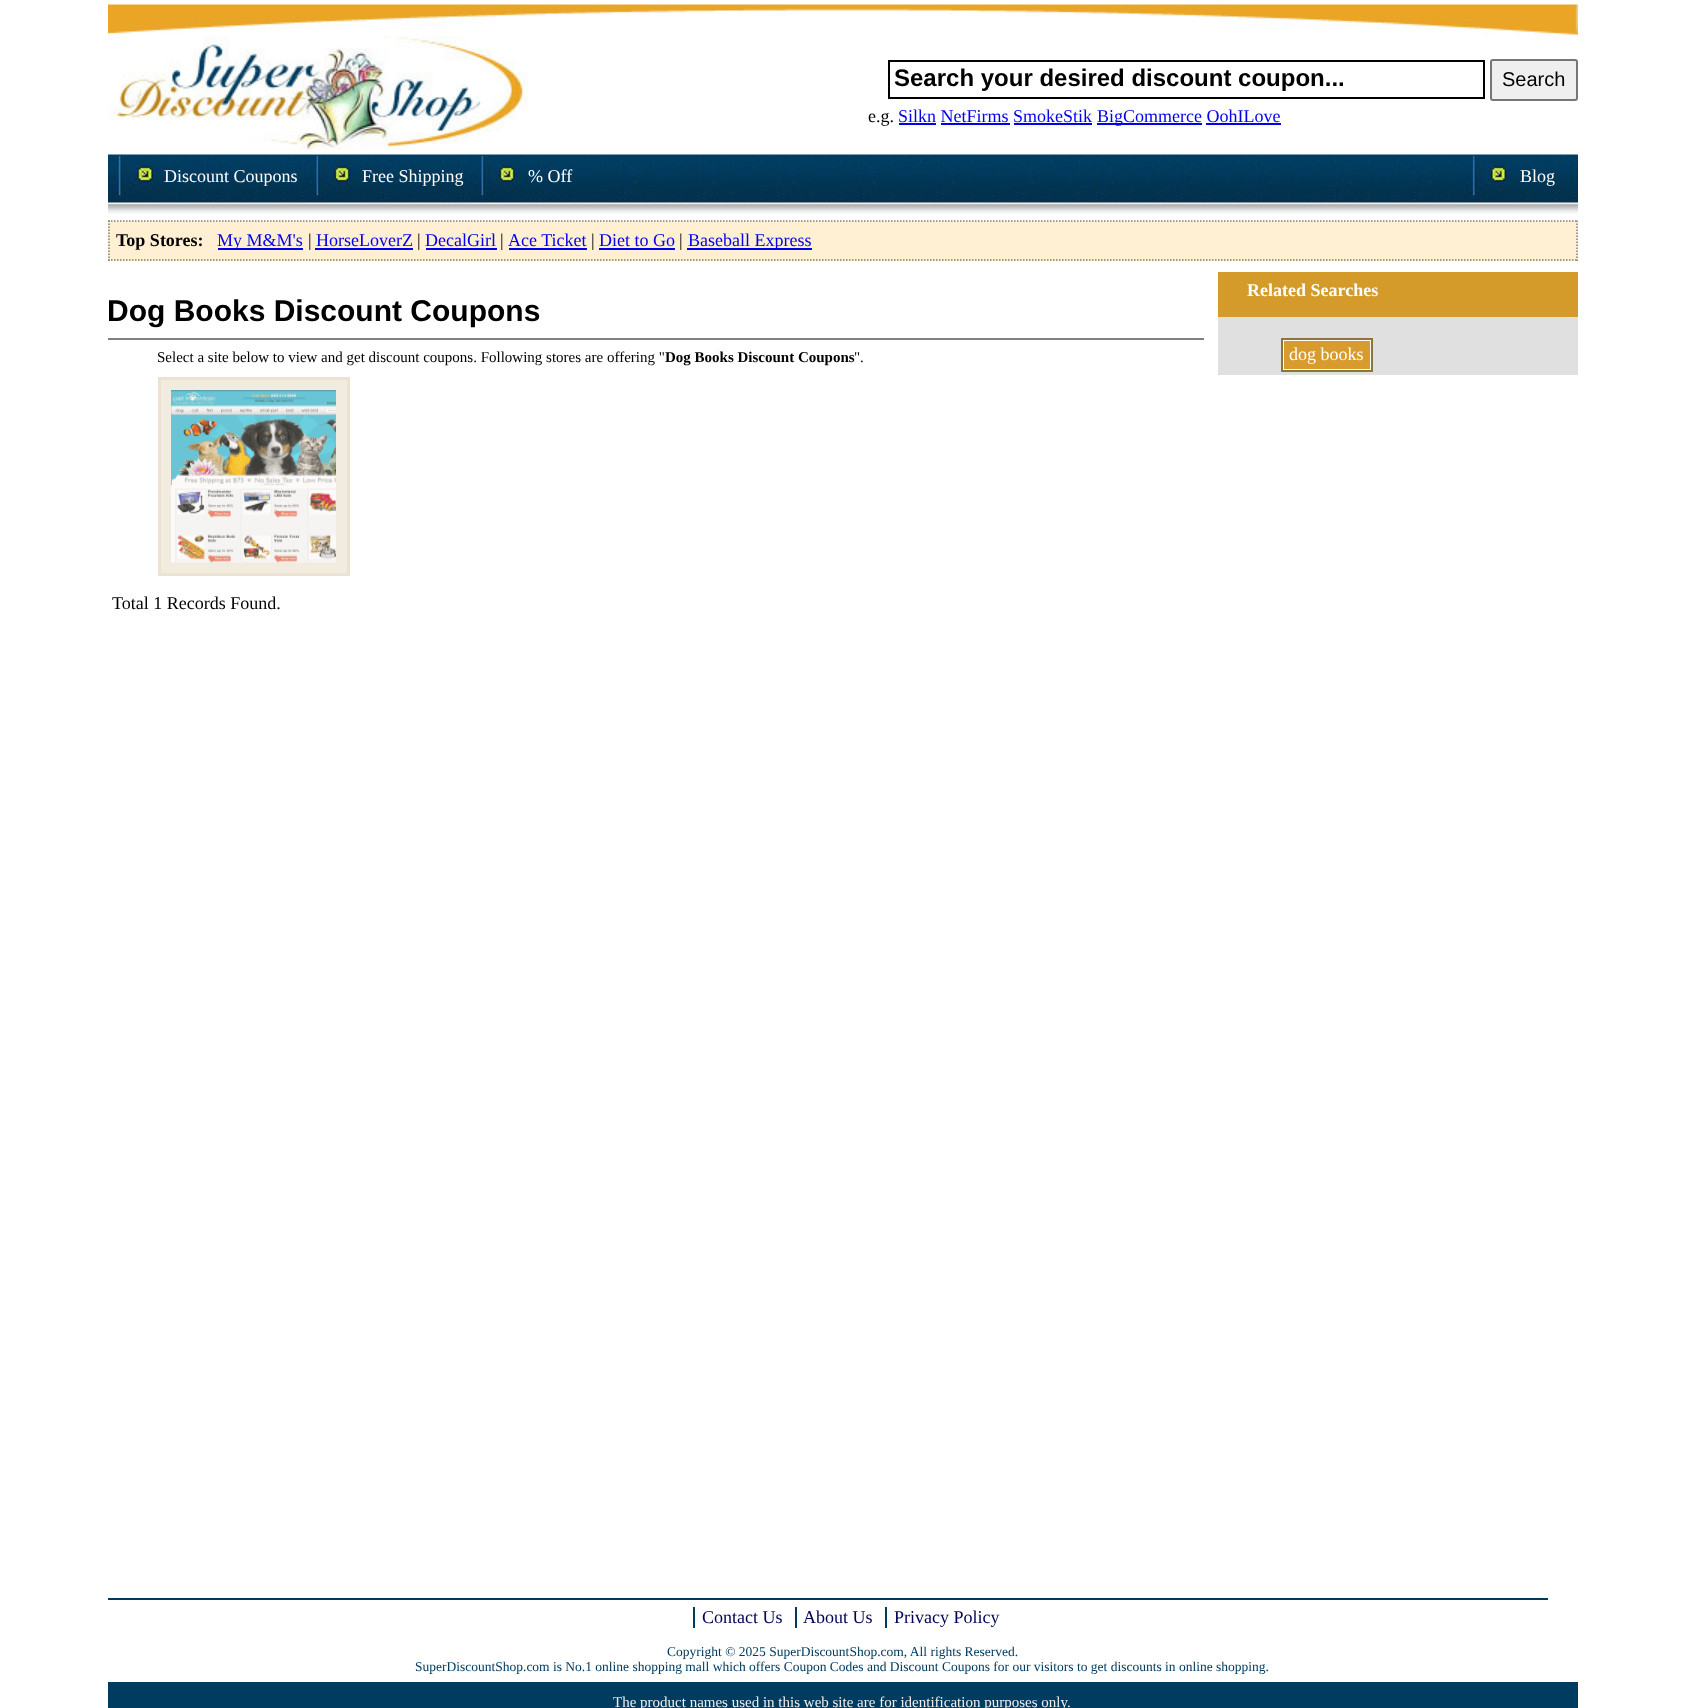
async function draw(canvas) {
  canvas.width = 1684
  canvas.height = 1708
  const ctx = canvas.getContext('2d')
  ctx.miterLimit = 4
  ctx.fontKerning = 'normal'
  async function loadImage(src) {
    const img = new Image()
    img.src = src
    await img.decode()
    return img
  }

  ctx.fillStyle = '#fff'
  ctx.fillRect(0, 0, 1684, 1708)
  ctx.drawImage(await loadImage('image0.png'), 108, 4, 1470, 32)
  ctx.drawImage(await loadImage('image1.png'), 108, 36, 420, 114)
  ctx.strokeStyle = '#000'
  ctx.lineWidth = 2
  ctx.strokeRect(889, 61, 595, 37)
  ctx.font = 'bold 24px Liberation Sans'
  ctx.fillStyle = '#000'
  ctx.fillText('Search your desired discount coupon...', 894, 86)
  ctx.fillStyle = '#efefef'
  ctx.beginPath()
  ctx.roundRect(1491, 60, 86, 40, 2)
  ctx.fill()
  ctx.strokeStyle = '#767676'
  ctx.stroke()
  ctx.font = '20px Liberation Sans'
  ctx.fillStyle = '#000'
  ctx.fillText('Search', 1502, 86)
  ctx.font = '18px Liberation Serif'
  ctx.fillText('e.g.', 868, 122)
  ctx.fillStyle = '#00e'
  ctx.fillText('Silkn NetFirms SmokeStik', 898, 122)
  ctx.fillRect(899, 123, 37, 2)
  ctx.fillRect(1097, 123, 105, 2)
  ctx.fillText('BigCommerce OohILove', 1097, 122)
  ctx.fillRect(941, 123, 69, 2)
  ctx.fillRect(1014, 123, 78, 2)
  ctx.fillRect(1206, 123, 75, 2)
  ctx.drawImage(await loadImage('image2.png'), 108, 154, 1470, 60)
  ctx.drawImage(await loadImage('image3.png'), 108, 154, 53, 50)
  ctx.fillStyle = '#fff'
  ctx.fillText('Discount Coupons', 164, 182)
  ctx.drawImage(await loadImage('image4.png'), 306, 155, 51, 49)
  ctx.fillText('Free Shipping', 362, 182)
  ctx.drawImage(await loadImage('image5.png'), 471, 155, 51, 49)
  ctx.fillText('% Off', 528, 182)
  ctx.drawImage(await loadImage('image6.png'), 1463, 154, 51, 50)
  ctx.fillText('Blog', 1520, 182)
  ctx.fillStyle = '#ffefd3'
  ctx.fillRect(108, 221, 1470, 40)
  ctx.beginPath()
  ctx.moveTo(108, 221)
  ctx.lineTo(1578, 221)
  ctx.strokeStyle = '#808080'
  ctx.lineWidth = 1.5
  ctx.setLineDash([1.5, 1.5])
  ctx.stroke()
  ctx.beginPath()
  ctx.moveTo(1577, 220.5)
  ctx.lineTo(1577, 261)
  ctx.stroke()
  ctx.beginPath()
  ctx.moveTo(108, 260)
  ctx.lineTo(1578, 260)
  ctx.stroke()
  ctx.beginPath()
  ctx.moveTo(109, 220.5)
  ctx.lineTo(109, 261)
  ctx.stroke()
  ctx.font = 'bold 18px Liberation Serif'
  ctx.fillStyle = '#000'
  ctx.fillText('Top Stores:', 116, 246)
  ctx.fillStyle = '#00e'
  ctx.fillRect(218, 248, 85, 2)
  ctx.font = '18px Liberation Serif'
  ctx.fillText('My M&M\'s', 217, 246)
  ctx.fillStyle = '#000'
  ctx.fillText('|', 308, 246)
  ctx.fillStyle = '#00e'
  ctx.fillText('HorseLoverZ', 316, 246)
  ctx.fillRect(315, 248, 98, 2)
  ctx.fillStyle = '#000'
  ctx.fillText('|', 417, 246)
  ctx.fillStyle = '#00e'
  ctx.fillText('DecalGirl', 425, 246)
  ctx.fillRect(426, 248, 71, 2)
  ctx.fillStyle = '#000'
  ctx.fillText('|', 500, 246)
  ctx.fillStyle = '#00e'
  ctx.fillText('Ace Ticket', 508, 246)
  ctx.fillRect(509, 248, 78, 2)
  ctx.fillStyle = '#000'
  ctx.fillText('|', 591, 246)
  ctx.fillStyle = '#00e'
  ctx.fillText('Diet to Go', 599, 246)
  ctx.fillRect(599, 248, 76, 2)
  ctx.fillStyle = '#000'
  ctx.fillText('|', 679, 246)
  ctx.fillStyle = '#00e'
  ctx.fillRect(687, 248, 125, 2)
  ctx.fillText('Baseball Express', 688, 246)
  ctx.font = 'bold 30px Liberation Sans'
  ctx.fillStyle = '#000'
  ctx.fillText('Dog Books Discount Coupons', 107, 321)
  ctx.fillStyle = '#808080'
  ctx.fillRect(108, 338, 1096, 2)
  ctx.font = '15px Liberation Serif'
  ctx.fillStyle = '#000'
  ctx.fillText('Select a site below to view and get discount coupons. Following stores are offering "', 157, 362)
  ctx.font = 'bold 15px Liberation Serif'
  ctx.fillText('Dog Books Discount Coupons', 665, 362)
  ctx.font = '15px Liberation Serif'
  ctx.fillText('".', 854, 362)
  ctx.fillStyle = '#f1ebe0'
  ctx.beginPath()
  ctx.rect(159.5, 378.5, 189, 196)
  ctx.fill()
  ctx.strokeStyle = '#ebe2d2'
  ctx.lineWidth = 3
  ctx.setLineDash([])
  ctx.stroke()
  ctx.drawImage(await loadImage('image7.png'), 171, 390, 165, 173)
  ctx.font = '18px Liberation Serif'
  ctx.fillStyle = '#000'
  ctx.fillText('Total 1 Records Found.', 112, 609)
  ctx.fillStyle = '#e0e0e0'
  ctx.fillRect(1218, 317, 360, 58)
  ctx.fillStyle = '#d49b2a'
  ctx.fillRect(1218, 272, 360, 45)
  ctx.font = 'bold 18px Liberation Serif'
  ctx.fillStyle = '#fff'
  ctx.fillText('Related Searches', 1247, 296)
  ctx.beginPath()
  ctx.rect(1282, 339, 90, 32)
  ctx.fill()
  ctx.strokeStyle = '#89763b'
  ctx.lineWidth = 2
  ctx.stroke()
  ctx.fillStyle = '#d89c2e'
  ctx.fillRect(1284, 341, 86, 28)
  ctx.font = '18px Liberation Serif'
  ctx.fillStyle = '#fff'
  ctx.fillText('dog books', 1289, 360)
  ctx.fillStyle = '#00385a'
  ctx.fillRect(108, 1598, 1440, 2)
  ctx.fillStyle = '#005'
  ctx.fillText('Contact Us', 702, 1623)
  ctx.fillStyle = '#003c60'
  ctx.fillRect(693, 1607, 2, 21)
  ctx.fillStyle = '#005'
  ctx.fillText('About Us', 803, 1623)
  ctx.fillStyle = '#003c60'
  ctx.fillRect(795, 1607, 2, 21)
  ctx.fillStyle = '#005'
  ctx.fillText('Privacy Policy', 894, 1623)
  ctx.fillStyle = '#003c60'
  ctx.fillRect(885, 1607, 2, 21)
  ctx.font = '13.5px Liberation Serif'
  ctx.fillText('Copyright © 2025 SuperDiscountShop.com, All rights Reserved.', 667, 1656)
  ctx.fillText('SuperDiscountShop.com is No.1 online shopping mall which offers Coupon Codes and Discount Coupons for our visitors to get discounts in online shopping.', 415, 1671)
  ctx.fillRect(108, 1682, 1470, 26)
  ctx.font = '15px Liberation Serif'
  ctx.fillStyle = '#eee'
  ctx.fillText('The product names used in this web site are for identification purposes only.', 613, 1707)
}

draw(document.querySelector('canvas'))
